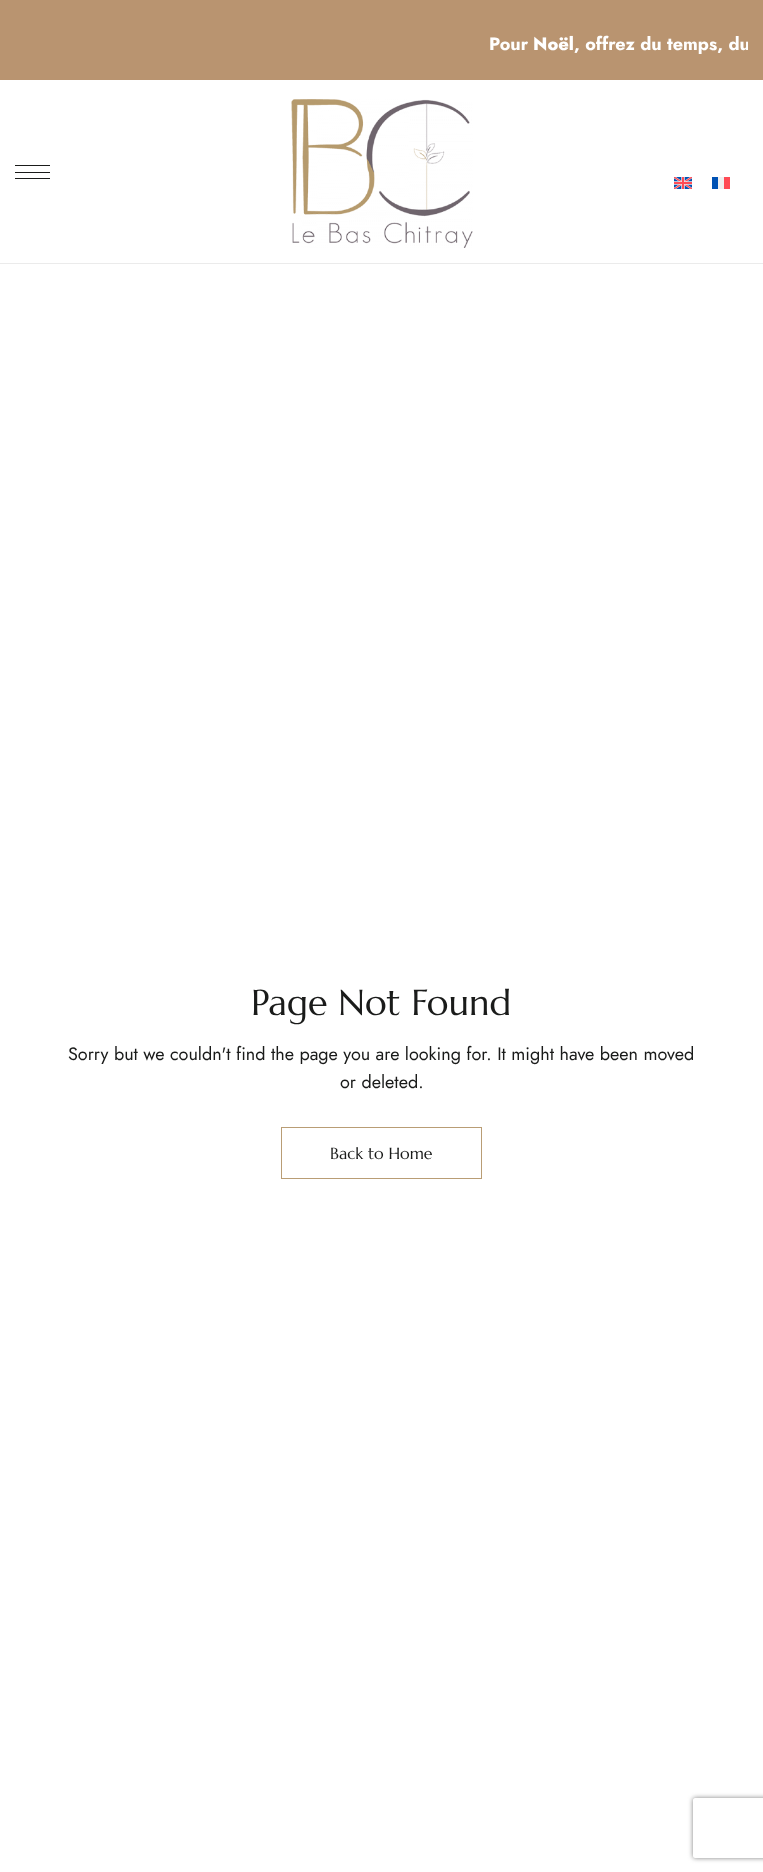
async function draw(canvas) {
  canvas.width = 763
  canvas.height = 1872
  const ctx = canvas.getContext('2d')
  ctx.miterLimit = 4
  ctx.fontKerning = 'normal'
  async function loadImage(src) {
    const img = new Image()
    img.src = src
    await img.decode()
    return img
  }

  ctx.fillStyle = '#fff'
  ctx.fillRect(0, 0, 763, 1872)
  ctx.fillStyle = '#b99470'
  ctx.fillRect(0, 0, 763, 80)
  ctx.font = 'bold 18px Jost'
  ctx.fillStyle = '#fff'
  ctx.fillText('Pour', 489, 50)
  ctx.font = '800 18px Jost'
  ctx.fillText('Noël', 533, 50)
  ctx.save()
  ctx.beginPath()
  ctx.rect(15, 15, 733, 50)
  ctx.clip()
  ctx.font = 'bold 18px Jost'
  ctx.fillText(', offrez du temps, du', 574, 50)
  ctx.restore()
  ctx.fillStyle = '#ebebeb'
  ctx.fillRect(0, 263, 763, 1)
  ctx.fillStyle = '#1a1b1a'
  ctx.fillRect(15, 165, 35, 1)
  ctx.fillRect(15, 178, 35, 1)
  ctx.fillRect(15, 172, 35, 1)
  ctx.drawImage(await loadImage('image0.png'), 291, 99, 182, 149)
  ctx.drawImage(await loadImage('image1.png'), 674, 177, 18, 12)
  ctx.fillStyle = '#0052b4'
  ctx.fillRect(712, 177, 6, 12)
  ctx.fillStyle = '#f0f0f0'
  ctx.fillRect(718, 177, 6, 12)
  ctx.fillStyle = '#ff4b55'
  ctx.fillRect(724, 177, 6, 12)
  ctx.font = '36px Marcellus'
  ctx.fillStyle = '#1a1b1a'
  ctx.fillText('Page Not Found', 251, 1015)
  ctx.font = '18px Jost'
  ctx.fillText('Sorry but we couldn\'t find the page you are looking for. It might have been moved', 68, 1060)
  ctx.fillText('or deleted.', 340, 1088)
  ctx.strokeStyle = '#b99d75'
  ctx.strokeRect(281.5, 1127.5, 200, 51)
  ctx.font = '16px Marcellus'
  ctx.fillText('Back to Home', 330, 1159)
  ctx.save()
  ctx.beginPath()
  ctx.moveTo(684, 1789)
  ctx.lineTo(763, 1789)
  ctx.lineTo(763, 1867)
  ctx.lineTo(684, 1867)
  ctx.closePath()
  ctx.moveTo(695, 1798)
  ctx.lineTo(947, 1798)
  ctx.bezierCurveTo(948, 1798, 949, 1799, 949, 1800)
  ctx.lineTo(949, 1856)
  ctx.bezierCurveTo(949, 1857, 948, 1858, 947, 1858)
  ctx.lineTo(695, 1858)
  ctx.bezierCurveTo(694, 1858, 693, 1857, 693, 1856)
  ctx.lineTo(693, 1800)
  ctx.bezierCurveTo(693, 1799, 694, 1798, 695, 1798)
  ctx.closePath()
  ctx.clip('evenodd')
  ctx.fillStyle = '#808080'
  ctx.filter = 'blur(2.5px)'
  ctx.beginPath()
  ctx.roundRect(693, 1798, 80, 60, 2)
  ctx.fill()
  ctx.filter = 'none'
  ctx.restore()
}

draw(document.querySelector('canvas'))
